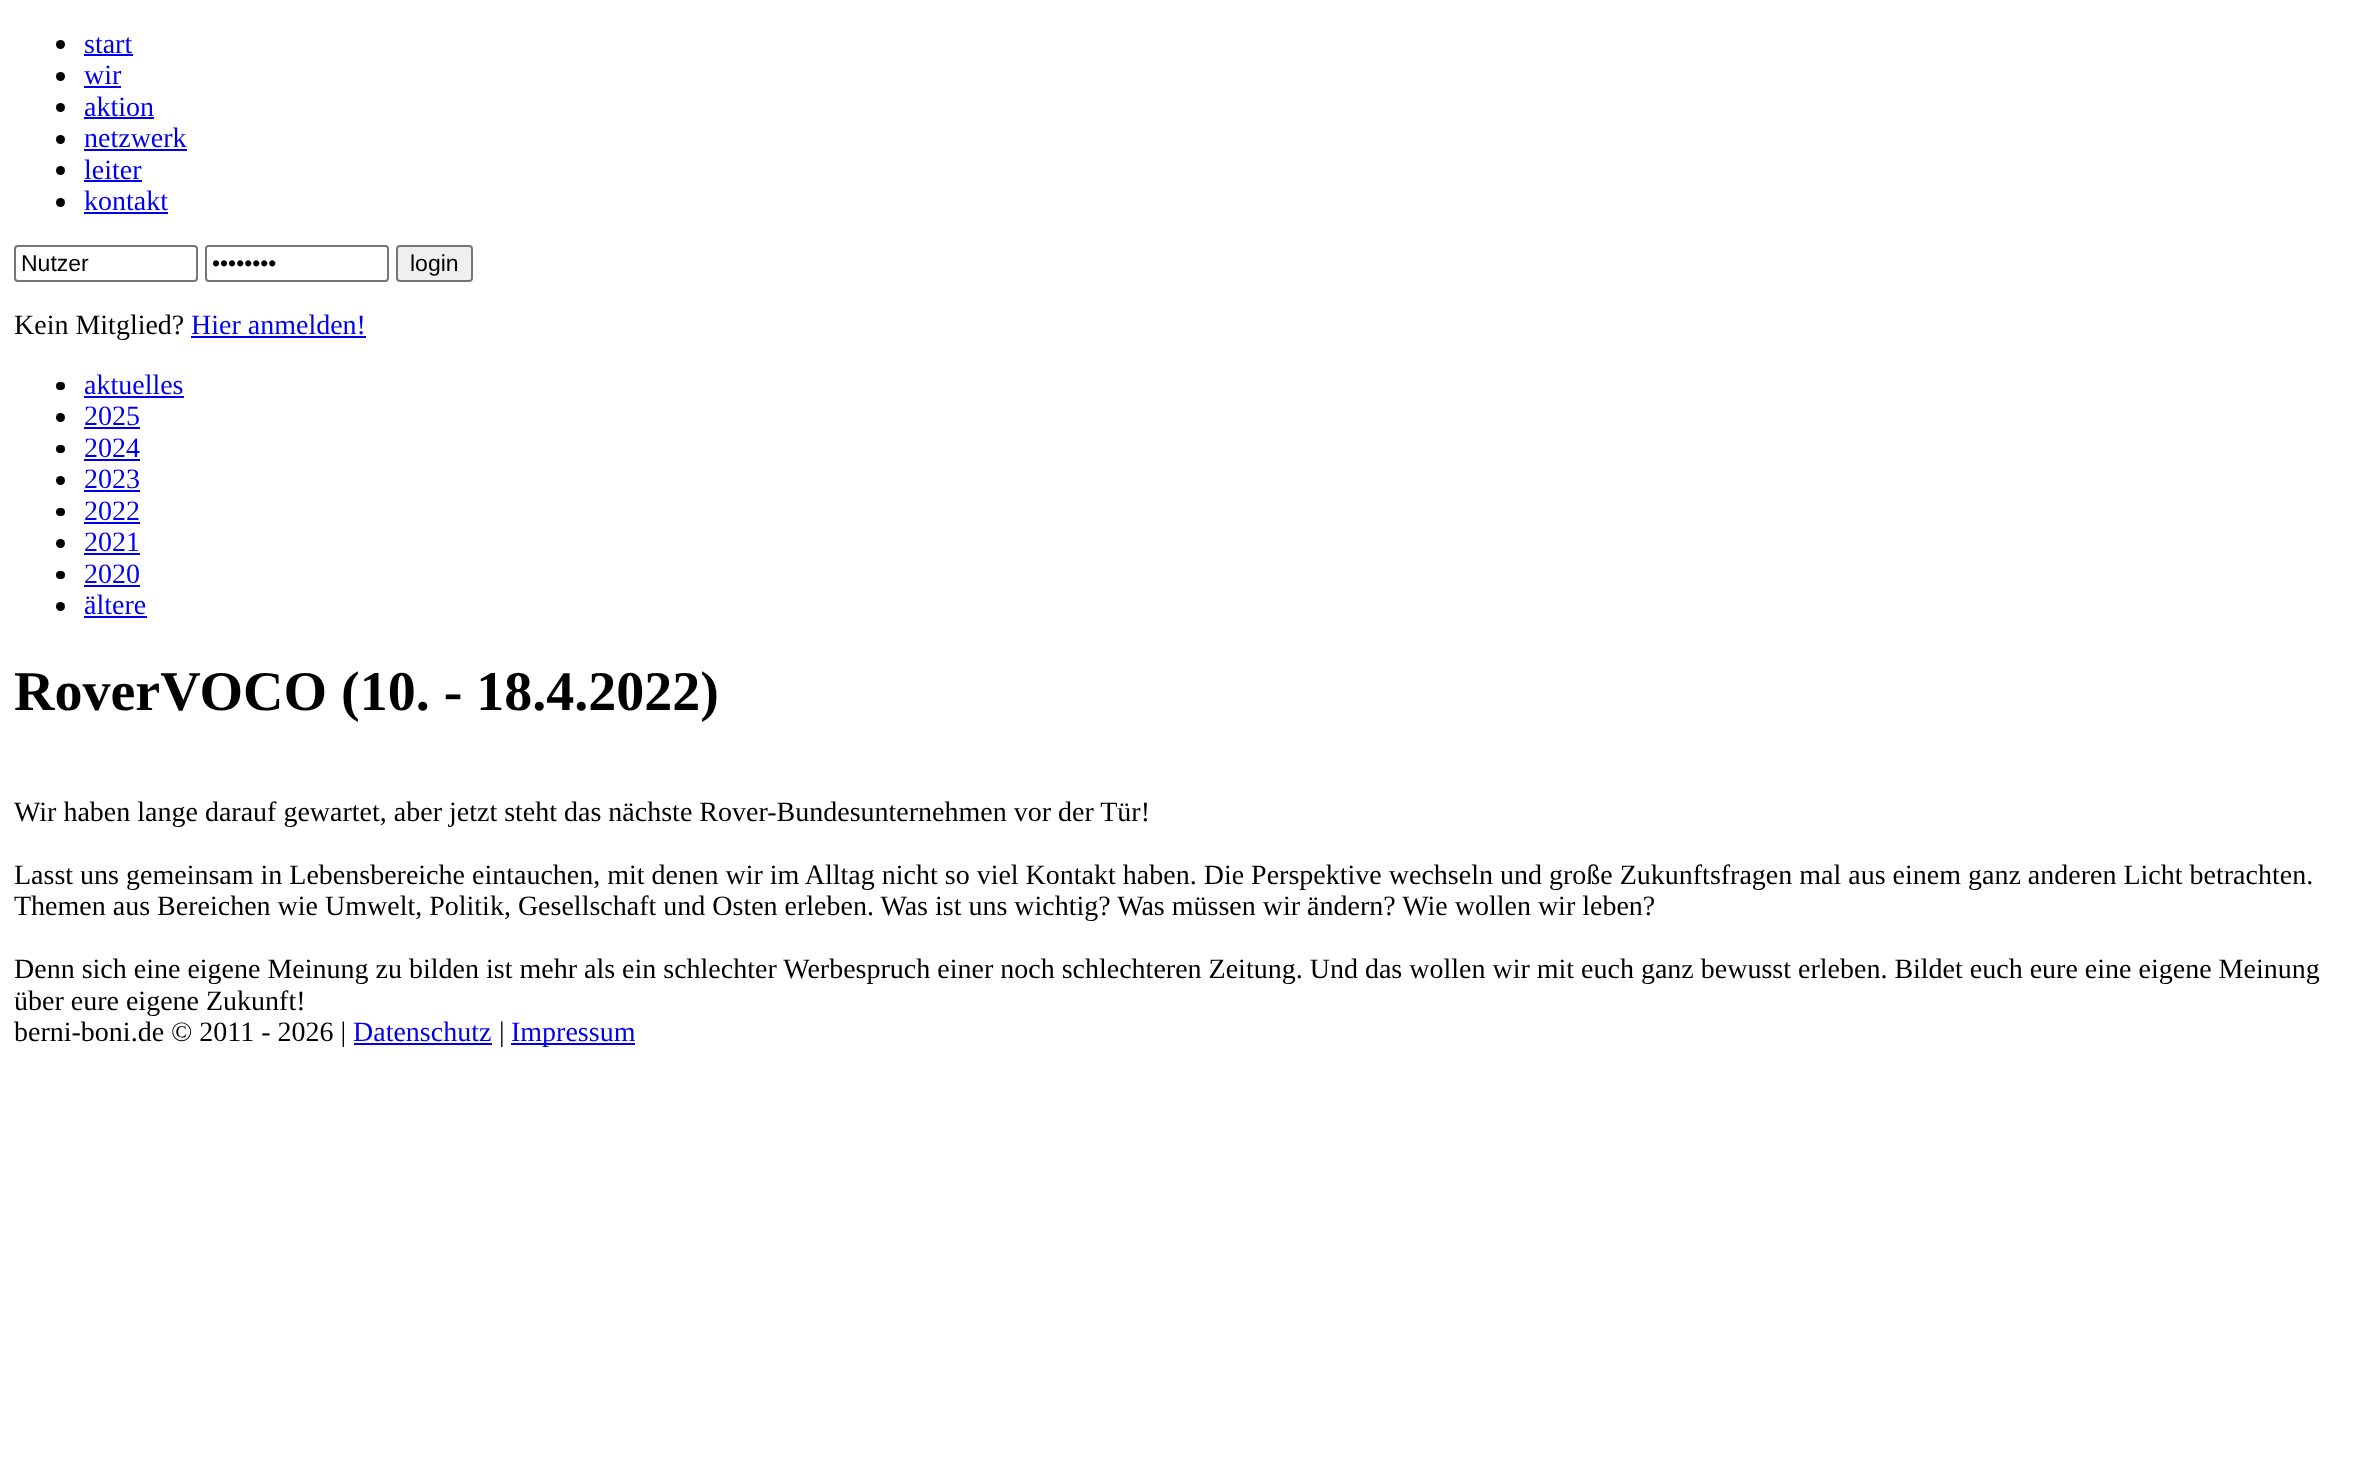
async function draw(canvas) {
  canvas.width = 2374
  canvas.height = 1464
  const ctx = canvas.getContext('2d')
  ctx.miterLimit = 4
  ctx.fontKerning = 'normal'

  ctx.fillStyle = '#fff'
  ctx.fillRect(0, 0, 2374, 1464)
  ctx.fillStyle = '#000'
  ctx.beginPath()
  ctx.arc(60.5, 44.5, 4.5, 0, 2 * Math.PI)
  ctx.fill()
  ctx.font = '28px Liberation Serif'
  ctx.fillStyle = '#00e'
  ctx.fillText('start', 84, 53)
  ctx.fillRect(84, 54, 49, 2)
  ctx.fillStyle = '#000'
  ctx.beginPath()
  ctx.arc(60.5, 76.5, 4.5, 0, 2 * Math.PI)
  ctx.fill()
  ctx.fillStyle = '#00e'
  ctx.fillText('wir', 84, 84)
  ctx.fillRect(84, 86, 37, 2)
  ctx.fillStyle = '#000'
  ctx.beginPath()
  ctx.arc(60.5, 107.5, 4.5, 0, 2 * Math.PI)
  ctx.fill()
  ctx.fillStyle = '#00e'
  ctx.fillText('aktion', 84, 116)
  ctx.fillRect(84, 117, 70, 2)
  ctx.fillStyle = '#000'
  ctx.beginPath()
  ctx.arc(60.5, 139.5, 4.5, 0, 2 * Math.PI)
  ctx.fill()
  ctx.fillStyle = '#00e'
  ctx.fillText('netzwerk', 84, 147)
  ctx.fillRect(84, 149, 103, 2)
  ctx.fillStyle = '#000'
  ctx.beginPath()
  ctx.arc(60.5, 170.5, 4.5, 0, 2 * Math.PI)
  ctx.fill()
  ctx.fillStyle = '#00e'
  ctx.fillText('leiter', 84, 179)
  ctx.fillRect(84, 180, 58, 2)
  ctx.fillStyle = '#000'
  ctx.beginPath()
  ctx.arc(60.5, 202.5, 4.5, 0, 2 * Math.PI)
  ctx.fill()
  ctx.fillStyle = '#00e'
  ctx.fillText('kontakt', 84, 210)
  ctx.fillRect(84, 212, 84, 2)
  ctx.beginPath()
  ctx.roundRect(15, 246, 182, 35, 3)
  ctx.strokeStyle = '#767676'
  ctx.lineWidth = 2
  ctx.stroke()
  ctx.font = '23px Liberation Sans'
  ctx.fillStyle = '#000'
  ctx.fillText('Nutzer', 21, 271)
  ctx.beginPath()
  ctx.roundRect(206, 246, 182, 35, 3)
  ctx.stroke()
  ctx.fillText('••••••••', 212, 271)
  ctx.fillStyle = '#efefef'
  ctx.beginPath()
  ctx.roundRect(397, 246, 75, 35, 3)
  ctx.fill()
  ctx.stroke()
  ctx.fillStyle = '#000'
  ctx.fillText('login', 410, 271)
  ctx.font = '28px Liberation Serif'
  ctx.fillText('Kein Mitglied?', 14, 334)
  ctx.fillStyle = '#00e'
  ctx.fillText('Hier anmelden!', 191, 334)
  ctx.fillRect(191, 336, 175, 2)
  ctx.fillStyle = '#000'
  ctx.beginPath()
  ctx.roundRect(56, 382, 9, 8, 4)
  ctx.fill()
  ctx.fillStyle = '#00e'
  ctx.fillText('aktuelles', 84, 394)
  ctx.fillRect(84, 396, 100, 2)
  ctx.fillStyle = '#000'
  ctx.beginPath()
  ctx.arc(60.5, 417.5, 4.5, 0, 2 * Math.PI)
  ctx.fill()
  ctx.fillStyle = '#00e'
  ctx.fillText('2025', 84, 425)
  ctx.fillRect(84, 427, 56, 2)
  ctx.fillStyle = '#000'
  ctx.beginPath()
  ctx.roundRect(56, 445, 9, 8, 4)
  ctx.fill()
  ctx.fillStyle = '#00e'
  ctx.fillText('2024', 84, 457)
  ctx.fillRect(84, 459, 56, 2)
  ctx.fillStyle = '#000'
  ctx.beginPath()
  ctx.arc(60.5, 480.5, 4.5, 0, 2 * Math.PI)
  ctx.fill()
  ctx.fillStyle = '#00e'
  ctx.fillText('2023', 84, 488)
  ctx.fillRect(84, 490, 56, 2)
  ctx.fillStyle = '#000'
  ctx.beginPath()
  ctx.roundRect(56, 508, 9, 8, 4)
  ctx.fill()
  ctx.fillStyle = '#00e'
  ctx.fillText('2022', 84, 520)
  ctx.fillRect(84, 522, 56, 2)
  ctx.fillStyle = '#000'
  ctx.beginPath()
  ctx.arc(60.5, 543.5, 4.5, 0, 2 * Math.PI)
  ctx.fill()
  ctx.fillStyle = '#00e'
  ctx.fillText('2021', 84, 551)
  ctx.fillRect(84, 553, 56, 2)
  ctx.fillStyle = '#000'
  ctx.beginPath()
  ctx.roundRect(56, 571, 9, 8, 4)
  ctx.fill()
  ctx.fillStyle = '#00e'
  ctx.fillText('2020', 84, 583)
  ctx.fillRect(84, 585, 56, 2)
  ctx.fillStyle = '#000'
  ctx.beginPath()
  ctx.arc(60.5, 606.5, 4.5, 0, 2 * Math.PI)
  ctx.fill()
  ctx.fillStyle = '#00e'
  ctx.fillText('ältere', 84, 614)
  ctx.fillRect(84, 616, 63, 2)
  ctx.font = 'bold 56px Liberation Serif'
  ctx.fillStyle = '#000'
  ctx.fillText('RoverVOCO (10. - 18.4.2022)', 14, 710)
  ctx.font = '28px Liberation Serif'
  ctx.fillText('Wir haben lange darauf gewartet, aber jetzt steht das nächste Rover-Bundesunternehmen vor der Tür!', 14, 821)
  ctx.fillText('Lasst uns gemeinsam in Lebensbereiche eintauchen, mit denen wir im Alltag nicht so viel Kontakt haben. Die Perspektive wechseln und große Zukunftsfragen mal aus einem ganz anderen Licht betrachten.', 14, 884)
  ctx.fillText('Themen aus Bereichen wie Umwelt, Politik, Gesellschaft und Osten erleben. Was ist uns wichtig? Was müssen wir ändern? Wie wollen wir leben?', 14, 915)
  ctx.fillText('Denn sich eine eigene Meinung zu bilden ist mehr als ein schlechter Werbespruch einer noch schlechteren Zeitung. Und das wollen wir mit euch ganz bewusst erleben. Bildet euch eure eine eigene Meinung', 14, 978)
  ctx.fillText('über eure eigene Zukunft!', 14, 1010)
  ctx.fillText('berni-boni.de © 2011 - 2026 |', 14, 1041)
  ctx.fillStyle = '#00e'
  ctx.fillText('Datenschutz', 353, 1041)
  ctx.fillRect(354, 1043, 138, 2)
  ctx.fillStyle = '#000'
  ctx.fillText('|', 499, 1041)
  ctx.fillStyle = '#00e'
  ctx.fillRect(511, 1043, 124, 2)
  ctx.fillText('Impressum', 511, 1041)
}

draw(document.querySelector('canvas'))
